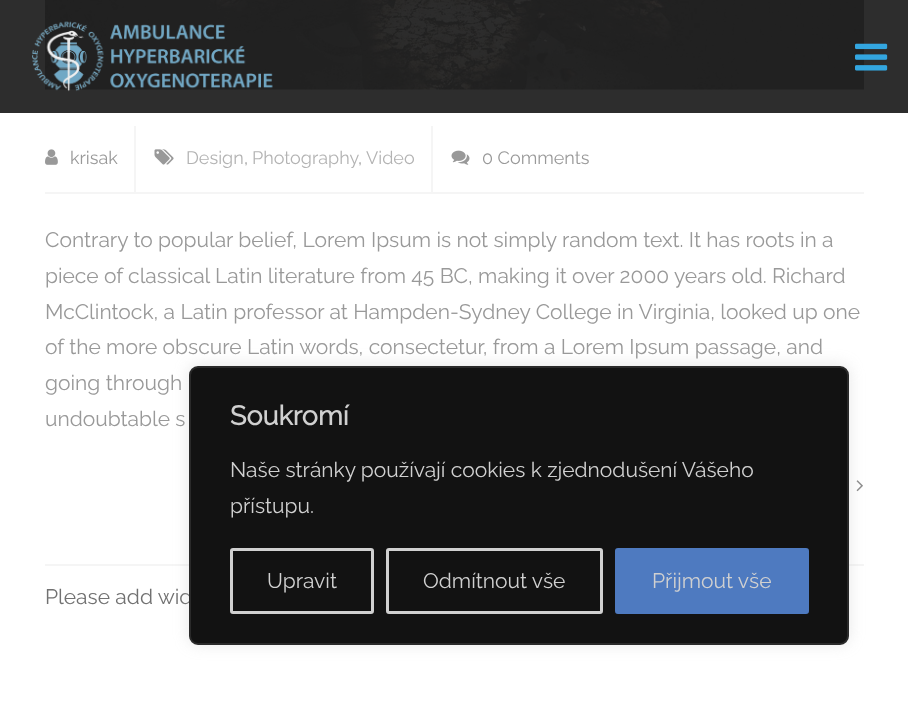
async function draw(canvas) {
  canvas.width = 908
  canvas.height = 705
  const ctx = canvas.getContext('2d')
  ctx.miterLimit = 4
  ctx.fontKerning = 'normal'
  async function loadImage(src) {
    const img = new Image()
    img.src = src
    await img.decode()
    return img
  }

  ctx.fillStyle = '#fff'
  ctx.fillRect(0, 0, 908, 705)
  ctx.fillStyle = '#2d2d2d'
  ctx.fillRect(0, 0, 908, 113)
  ctx.drawImage(await loadImage('image2.png'), 45, 0, 819, 90)
  ctx.drawImage(await loadImage('image0.png'), 32, 21, 241, 71)
  ctx.drawImage(await loadImage('image1.png'), 855, 43, 33, 28)
  ctx.fillStyle = '#f5f5f5'
  ctx.fillRect(45, 564, 819, 2)
  ctx.fillRect(45, 192, 819, 2)
  ctx.fillRect(134, 126, 2, 66)
  ctx.drawImage(await loadImage('image3.png'), 45, 149, 13, 16)
  ctx.font = '100 18px Raleway'
  ctx.fillStyle = '#999'
  ctx.fillText('krisak', 70, 164)
  ctx.fillStyle = '#f5f5f5'
  ctx.fillRect(431, 126, 2, 66)
  ctx.drawImage(await loadImage('image4.png'), 154, 149, 20, 16)
  ctx.fillStyle = '#b3b3b3'
  ctx.fillText('Design', 186, 164)
  ctx.fillStyle = '#999'
  ctx.fillText(',', 244, 164)
  ctx.fillStyle = '#b3b3b3'
  ctx.fillText('Photography', 252, 164)
  ctx.fillText('Video', 366, 164)
  ctx.fillStyle = '#999'
  ctx.fillText(',', 358, 164)
  ctx.drawImage(await loadImage('image5.png'), 451, 150, 19, 15)
  ctx.fillText('0 Comments', 482, 164)
  ctx.font = '100 21px Raleway'
  ctx.fillText('Contrary to popular belief, Lorem Ipsum is not simply random text. It has roots in a', 45, 247)
  ctx.fillText('piece of classical Latin literature from 45 BC, making it over 2000 years old. Richard', 45, 283)
  ctx.fillText('McClintock, a Latin professor at Hampden-Sydney College in Virginia, looked up one', 45, 319)
  ctx.fillText('of the more obscure Latin words, consectetur, from a Lorem Ipsum passage, and', 45, 354)
  ctx.fillText('going through', 45, 390)
  ctx.fillText('undoubtable s', 45, 426)
  ctx.drawImage(await loadImage('image6.png'), 856, 480, 7, 12)
  ctx.fillStyle = '#717171'
  ctx.fillText('Please add wid', 45, 604)
  ctx.fillStyle = '#acabab4d'
  ctx.filter = 'blur(7.5px)'
  ctx.beginPath()
  ctx.roundRect(189, 365, 660, 279, 9)
  ctx.fill()
  ctx.filter = 'none'
  ctx.fillStyle = '#121212'
  ctx.beginPath()
  ctx.roundRect(190, 367, 658, 277, 8)
  ctx.fill()
  ctx.strokeStyle = '#2a2a2a'
  ctx.lineWidth = 2
  ctx.stroke()
  ctx.font = 'bold 27px Raleway'
  ctx.fillStyle = '#d0d0d0'
  ctx.fillText('Soukromí', 230, 425)
  ctx.font = '100 21px Raleway'
  ctx.fillText('Naše stránky používají cookies k zjednodušení Vášeho', 230, 477)
  ctx.fillText('přístupu.', 230, 513)
  ctx.beginPath()
  ctx.roundRect(231.5, 549.5, 141, 63, 1.5)
  ctx.strokeStyle = '#d0d0d0'
  ctx.lineWidth = 3
  ctx.stroke()
  ctx.fillText('Upravit', 267, 588)
  ctx.beginPath()
  ctx.roundRect(387.5, 549.5, 214, 63, 1.5)
  ctx.stroke()
  ctx.fillText('Odmítnout vše', 423, 588)
  ctx.fillStyle = '#4e7ac0'
  ctx.beginPath()
  ctx.roundRect(616.5, 549.5, 191, 63, 1.5)
  ctx.fill()
  ctx.strokeStyle = '#4e7ac0'
  ctx.stroke()
  ctx.fillStyle = '#d0d0d0'
  ctx.fillText('Přijmout vše', 652, 588)
}

draw(document.querySelector('canvas'))
